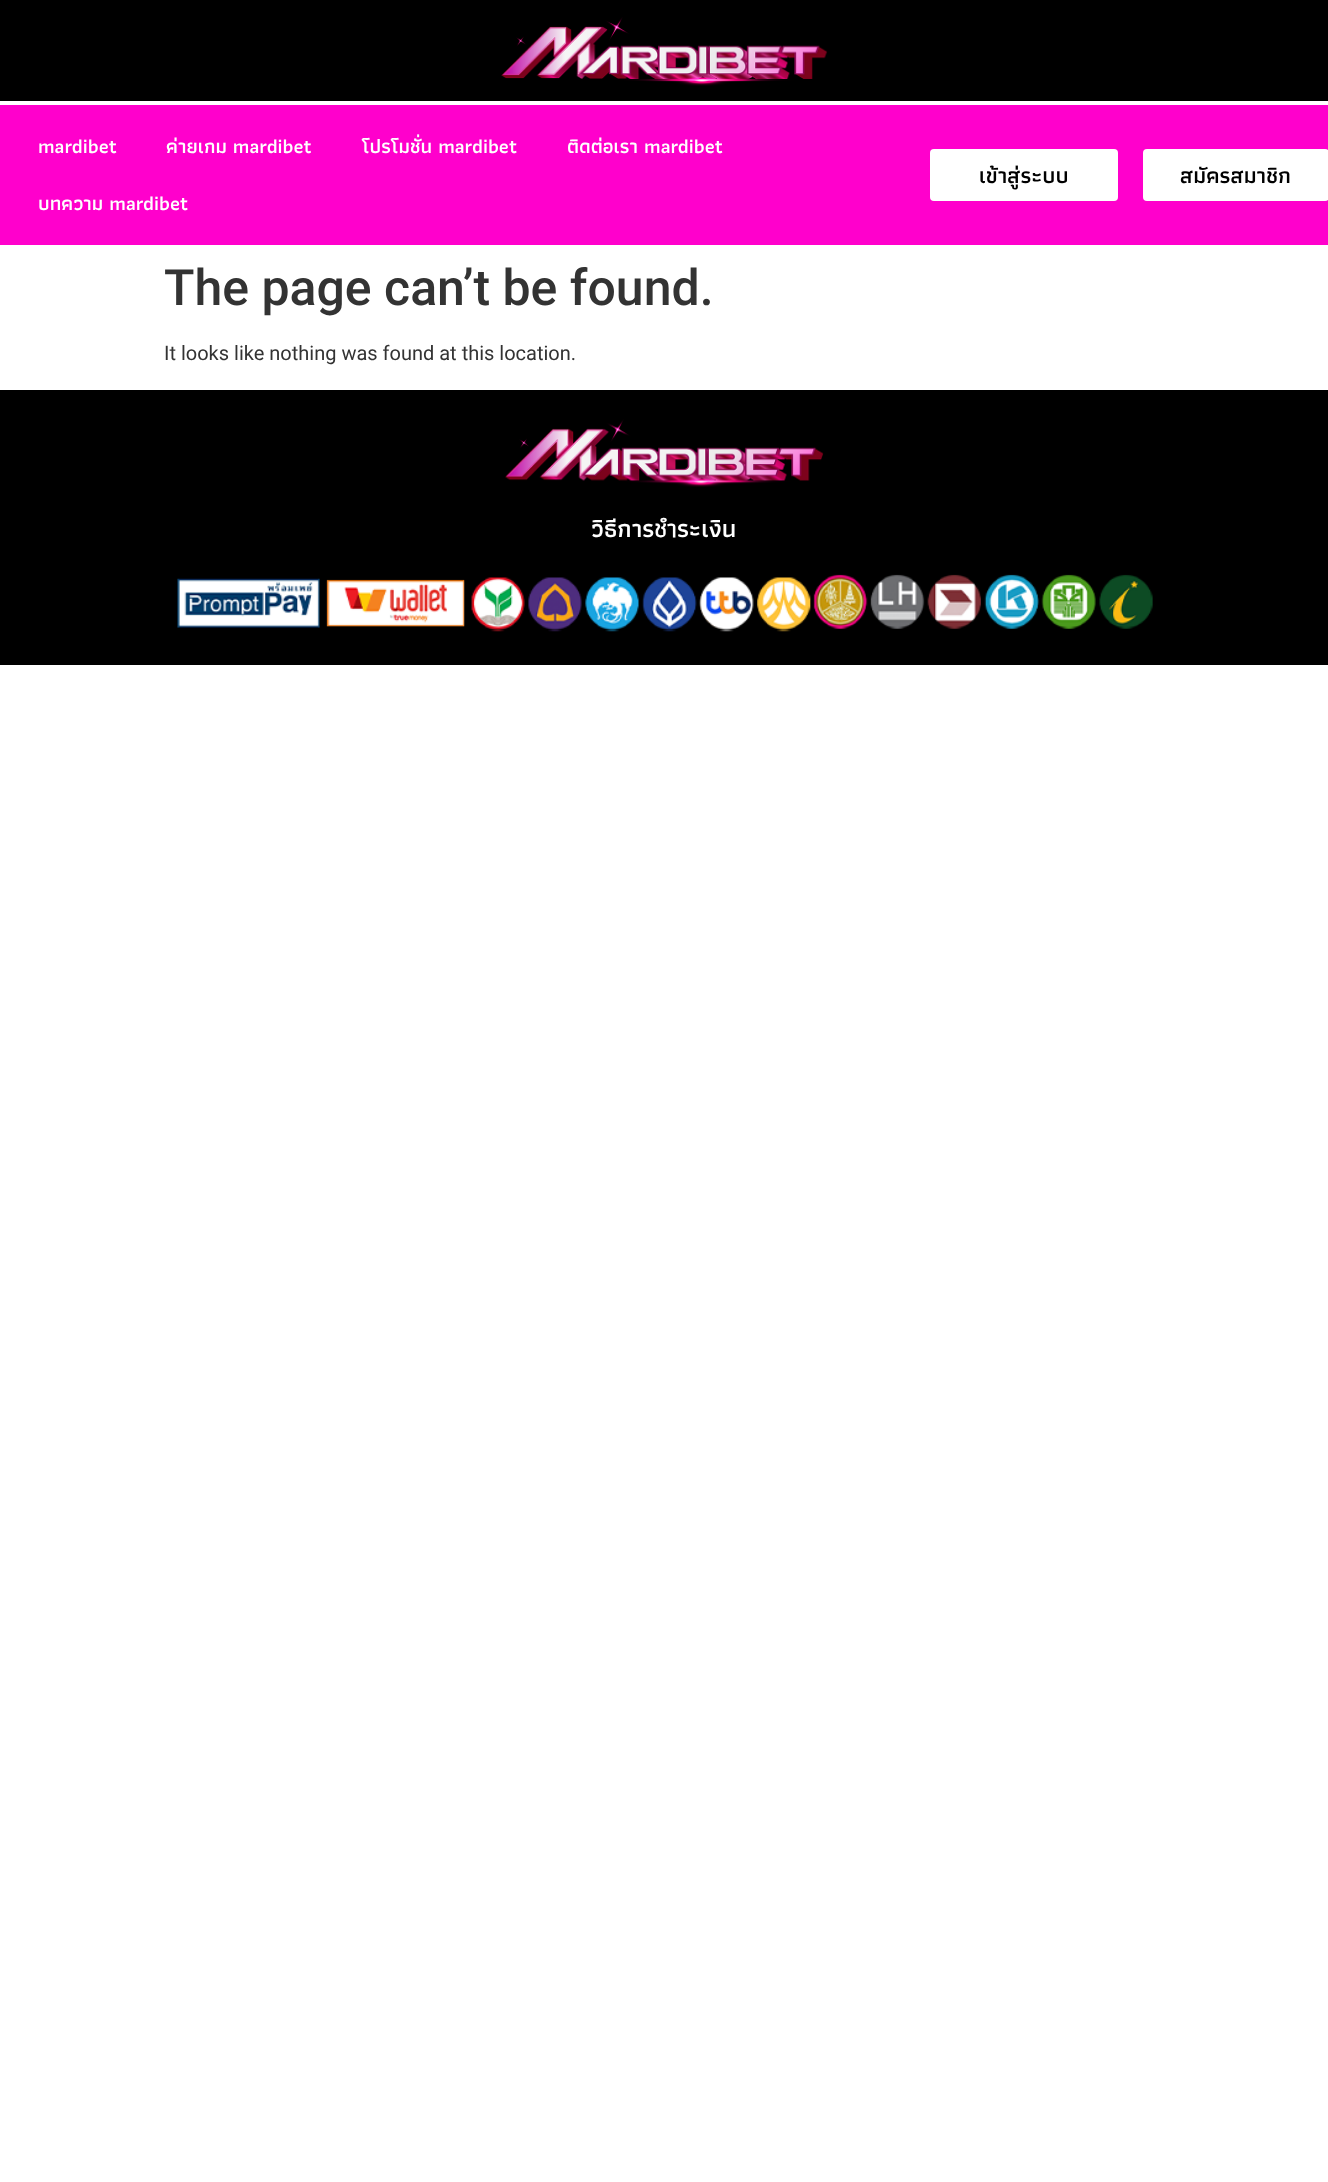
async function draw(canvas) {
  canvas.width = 1328
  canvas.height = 2182
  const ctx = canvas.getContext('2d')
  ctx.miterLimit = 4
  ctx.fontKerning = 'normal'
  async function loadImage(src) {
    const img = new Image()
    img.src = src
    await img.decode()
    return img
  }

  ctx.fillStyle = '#fff'
  ctx.fillRect(0, 0, 1328, 2182)
  ctx.fillStyle = '#000'
  ctx.fillRect(0, 0, 1328, 101)
  ctx.drawImage(await loadImage('image0.png'), 501, 17, 327, 69)
  ctx.fillStyle = '#f0c'
  ctx.fillRect(0, 105, 1328, 140)
  ctx.font = '600 20px Athiti'
  ctx.fillStyle = '#fff'
  ctx.fillText('mardibet', 38, 153)
  ctx.fillText('ค่ายเกม mardibet', 166, 153)
  ctx.fillText('โปรโมชั่น mardibet', 362, 153)
  ctx.fillText('ติดต่อเรา mardibet', 567, 153)
  ctx.fillText('บทความ mardibet', 38, 210)
  ctx.beginPath()
  ctx.roundRect(930, 149, 188, 52, 4)
  ctx.fill()
  ctx.font = '600 22.5px Athiti'
  ctx.fillStyle = '#000'
  ctx.fillText('เข้าสู่ระบบ', 979, 183)
  ctx.fillStyle = '#fff'
  ctx.beginPath()
  ctx.roundRect(1143, 149, 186, 52, 4)
  ctx.fill()
  ctx.fillStyle = '#000'
  ctx.fillText('สมัครสมาชิก', 1180, 183)
  ctx.font = '500 50px Roboto'
  ctx.fillStyle = '#333'
  ctx.fillText('The page can’t be found.', 164, 305)
  ctx.font = '20px Roboto'
  ctx.fillText('It looks like nothing was found at this location.', 164, 360)
  ctx.fillStyle = '#000'
  ctx.fillRect(0, 390, 1328, 275)
  ctx.drawImage(await loadImage('image1.png'), 505, 419, 319, 68)
  ctx.font = '600 25px Athiti'
  ctx.fillStyle = '#fff'
  ctx.fillText('วิธีการชำระเงิน', 591, 537)
  ctx.drawImage(await loadImage('image2.png'), 177, 574, 976, 58)
}

draw(document.querySelector('canvas'))
